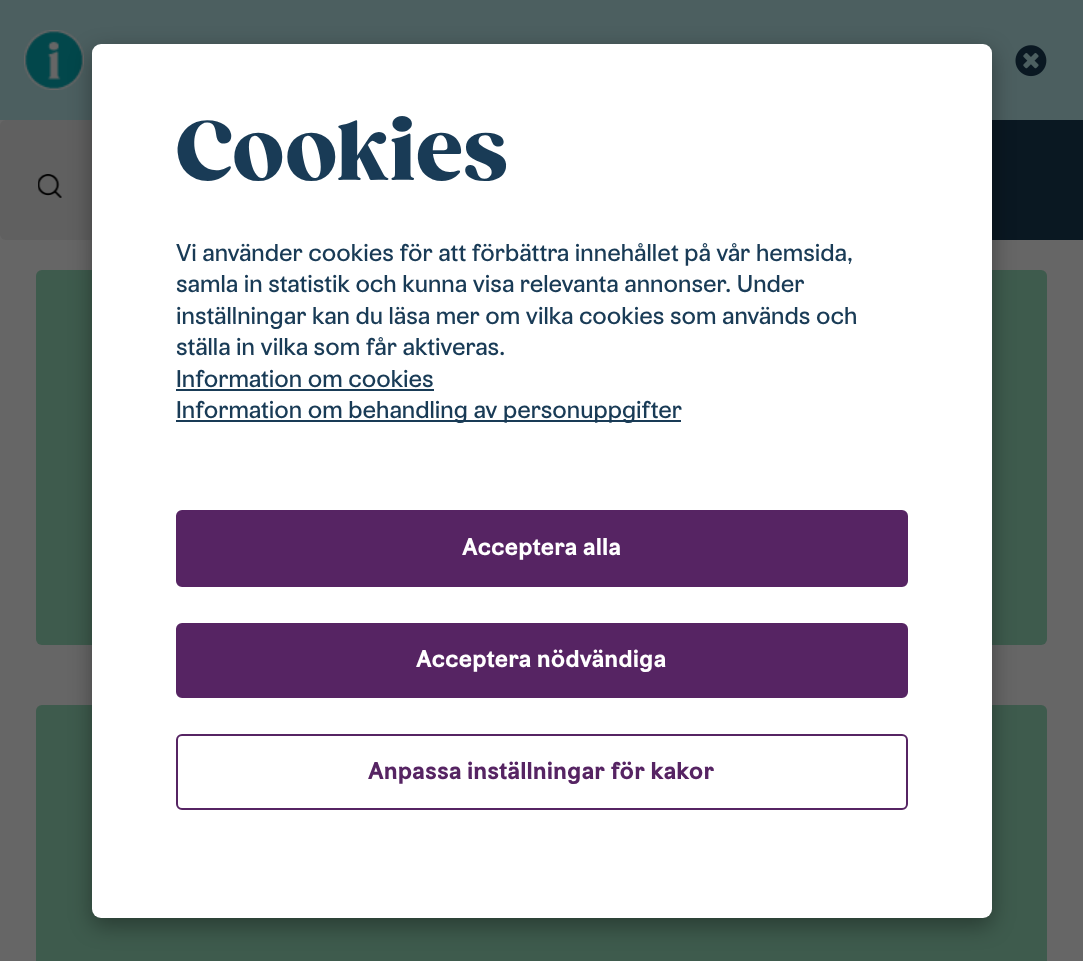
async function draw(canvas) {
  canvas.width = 1083
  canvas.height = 961
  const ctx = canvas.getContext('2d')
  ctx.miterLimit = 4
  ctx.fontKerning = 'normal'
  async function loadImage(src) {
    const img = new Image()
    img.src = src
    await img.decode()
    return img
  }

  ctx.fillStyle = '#666'
  ctx.fillRect(0, 0, 1083, 961)
  ctx.fillStyle = '#4c5f60'
  ctx.fillRect(0, 0, 1083, 120)
  ctx.drawImage(await loadImage('image0.png'), 24, 30, 60, 60)
  ctx.drawImage(await loadImage('image1.png'), 1015, 45, 32, 32)
  ctx.fillStyle = '#606060'
  ctx.beginPath()
  ctx.roundRect(0, 120, 542, 120, 6)
  ctx.fill()
  ctx.drawImage(await loadImage('image2.png'), 38, 174, 24, 24)
  ctx.fillStyle = '#0a1822'
  ctx.fillRect(992, 120, 91, 120)
  ctx.fillStyle = '#3e5b4d'
  ctx.beginPath()
  ctx.roundRect(36, 270, 1011, 375, 6)
  ctx.fill()
  ctx.beginPath()
  ctx.roundRect(36, 705, 1011, 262, 6)
  ctx.fill()
  ctx.fillStyle = '#00000059'
  ctx.filter = 'blur(11px)'
  ctx.beginPath()
  ctx.roundRect(92, 51, 900, 875, 9)
  ctx.fill()
  ctx.filter = 'none'
  ctx.fillStyle = '#fff'
  ctx.beginPath()
  ctx.roundRect(92, 44, 900, 874, 9)
  ctx.fill()
  ctx.font = '900 81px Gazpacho'
  ctx.fillStyle = '#193b56'
  ctx.fillText('Cookies', 176, 180)
  ctx.font = '24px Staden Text'
  ctx.fillText('Vi använder cookies för att förbättra innehållet på vår hemsida,', 176, 261)
  ctx.fillText('samla in statistik och kunna visa relevanta annonser. Under', 176, 292)
  ctx.fillText('inställningar kan du läsa mer om vilka cookies som används och', 176, 324)
  ctx.fillText('ställa in vilka som får aktiveras.', 176, 355)
  ctx.fillText('Information om cookies', 176, 387)
  ctx.fillRect(176, 389, 258, 2)
  ctx.fillRect(176, 420, 505, 2)
  ctx.fillText('Information om behandling av personuppgifter', 176, 418)
  ctx.fillStyle = '#562463'
  ctx.beginPath()
  ctx.roundRect(177, 511, 730, 75, 5)
  ctx.fill()
  ctx.strokeStyle = '#562463'
  ctx.lineWidth = 2
  ctx.stroke()
  ctx.font = 'bold 24px Staden Text'
  ctx.fillStyle = '#fff'
  ctx.fillText('Acceptera alla', 462, 555)
  ctx.fillStyle = '#562463'
  ctx.beginPath()
  ctx.roundRect(177, 624, 730, 73, 5)
  ctx.fill()
  ctx.stroke()
  ctx.fillStyle = '#fff'
  ctx.fillText('Acceptera nödvändiga', 416, 667)
  ctx.beginPath()
  ctx.roundRect(177, 735, 730, 74, 5)
  ctx.stroke()
  ctx.fillStyle = '#562463'
  ctx.fillText('Anpassa inställningar för kakor', 368, 779)
}

draw(document.querySelector('canvas'))
